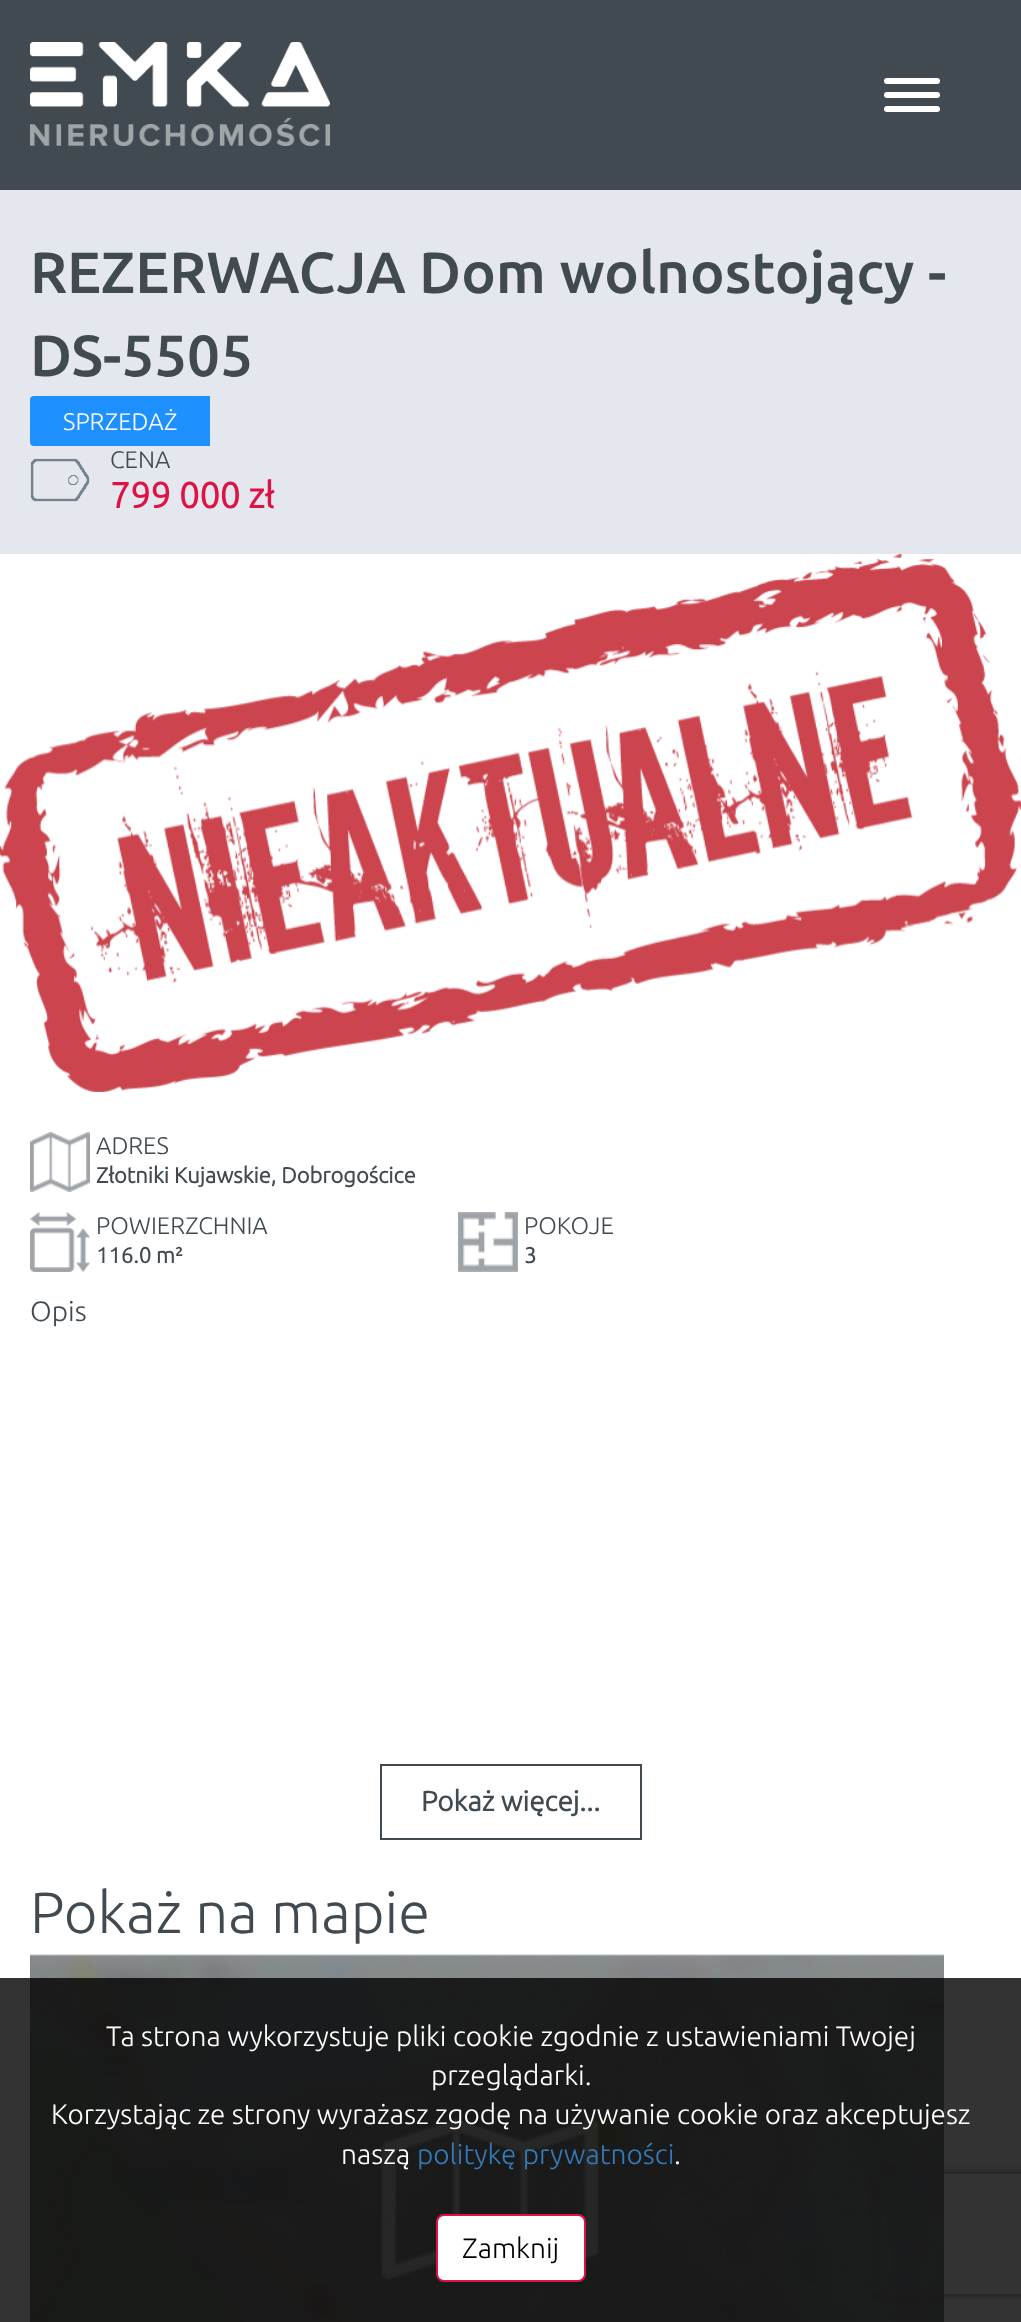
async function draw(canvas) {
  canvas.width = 1021
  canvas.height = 2322
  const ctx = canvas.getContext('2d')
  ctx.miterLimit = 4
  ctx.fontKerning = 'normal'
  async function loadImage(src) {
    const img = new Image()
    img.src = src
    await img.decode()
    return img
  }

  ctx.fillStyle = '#fff'
  ctx.fillRect(0, 0, 1021, 2322)
  ctx.fillStyle = '#333'
  ctx.fillRect(0, 1978, 1021, 344)
  ctx.fillStyle = '#414a51'
  ctx.fillRect(0, 0, 1021, 190)
  ctx.drawImage(await loadImage('image0.png'), 30, 42, 300, 104)
  ctx.fillStyle = '#fff'
  ctx.beginPath()
  ctx.roundRect(884, 78, 56, 6, 3)
  ctx.fill()
  ctx.beginPath()
  ctx.roundRect(884, 92, 56, 6, 3)
  ctx.fill()
  ctx.beginPath()
  ctx.roundRect(884, 106, 56, 6, 3)
  ctx.fill()
  ctx.fillStyle = '#e4e7ed'
  ctx.fillRect(0, 190, 1021, 364)
  ctx.font = '500 58px Ubuntu'
  ctx.fillStyle = '#414a51'
  ctx.fillText('REZERWACJA Dom wolnostojący -', 30, 293)
  ctx.fillText('DS-5505', 30, 376)
  ctx.fillStyle = '#1e90ff'
  ctx.beginPath()
  ctx.roundRect(30, 396, 180, 50, [4, 0, 0, 4])
  ctx.fill()
  ctx.font = '300 24px Ubuntu'
  ctx.fillStyle = '#fff'
  ctx.fillText('SPRZEDAŻ', 63, 430)
  ctx.drawImage(await loadImage('image1.png'), 30, 458, 60, 44)
  ctx.fillStyle = '#414a51'
  ctx.fillText('CENA', 110, 468)
  ctx.font = 'bold 36px Ubuntu'
  ctx.fillStyle = '#dd1245'
  ctx.fillText('799 000 zł', 110, 508)
  ctx.drawImage(await loadImage('image2.png'), 0, 554, 1021, 538)
  ctx.drawImage(await loadImage('image3.png'), 30, 1132, 60, 60)
  ctx.font = '300 24px Ubuntu'
  ctx.fillStyle = '#414a51'
  ctx.fillText('ADRES', 96, 1154)
  ctx.font = 'bold 22px Ubuntu'
  ctx.fillText('Złotniki Kujawskie, Dobrogościce', 96, 1183)
  ctx.drawImage(await loadImage('image4.png'), 30, 1212, 60, 60)
  ctx.font = '300 24px Ubuntu'
  ctx.fillText('POWIERZCHNIA', 96, 1234)
  ctx.font = 'bold 22px Ubuntu'
  ctx.fillText('116.0 m²', 96, 1263)
  ctx.drawImage(await loadImage('image5.png'), 458, 1212, 60, 60)
  ctx.font = '300 24px Ubuntu'
  ctx.fillText('POKOJE', 524, 1234)
  ctx.font = 'bold 22px Ubuntu'
  ctx.fillText('3', 524, 1263)
  ctx.font = '300 28px Ubuntu'
  ctx.fillText('Opis', 30, 1321)
  ctx.strokeStyle = '#414a51'
  ctx.lineWidth = 2
  ctx.strokeRect(381, 1765, 260, 74)
  ctx.font = 'bold 28px Ubuntu'
  ctx.fillText('Pokaż więcej...', 421, 1811)
  ctx.font = '300 58px Ubuntu'
  ctx.fillText('Pokaż na mapie', 30, 1933)
  ctx.drawImage(await loadImage('image6.png'), 30, 1954, 914, 368)
  ctx.save()
  ctx.beginPath()
  ctx.moveTo(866, 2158)
  ctx.lineTo(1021, 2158)
  ctx.lineTo(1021, 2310)
  ctx.lineTo(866, 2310)
  ctx.closePath()
  ctx.moveTo(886, 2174)
  ctx.lineTo(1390, 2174)
  ctx.bezierCurveTo(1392, 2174, 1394, 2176, 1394, 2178)
  ctx.lineTo(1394, 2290)
  ctx.bezierCurveTo(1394, 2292, 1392, 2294, 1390, 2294)
  ctx.lineTo(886, 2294)
  ctx.bezierCurveTo(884, 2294, 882, 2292, 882, 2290)
  ctx.lineTo(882, 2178)
  ctx.bezierCurveTo(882, 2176, 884, 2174, 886, 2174)
  ctx.closePath()
  ctx.clip('evenodd')
  ctx.fillStyle = '#1a1a1a'
  ctx.filter = 'blur(5px)'
  ctx.beginPath()
  ctx.roundRect(882, 2174, 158, 120, 4)
  ctx.fill()
  ctx.filter = 'none'
  ctx.restore()
  ctx.font = '300 28px Ubuntu'
  ctx.fillStyle = '#fff'
  ctx.fillText('Ta strona wykorzystuje pliki cookie zgodnie z ustawieniami Twojej', 106, 2046)
  ctx.fillText('przeglądarki.', 431, 2085)
  ctx.fillText('Korzystając ze strony wyrażasz zgodę na używanie cookie oraz akceptujesz', 51, 2124)
  ctx.fillText('naszą', 341, 2164)
  ctx.fillStyle = '#337ab7'
  ctx.fillText('politykę prywatności', 417, 2164)
  ctx.fillStyle = '#fff'
  ctx.fillText('.', 674, 2164)
  ctx.beginPath()
  ctx.roundRect(437, 2215, 148, 66, 7)
  ctx.fill()
  ctx.strokeStyle = '#dd1245'
  ctx.stroke()
  ctx.fillStyle = '#000'
  ctx.fillText('Zamknij', 462, 2258)
}

draw(document.querySelector('canvas'))
